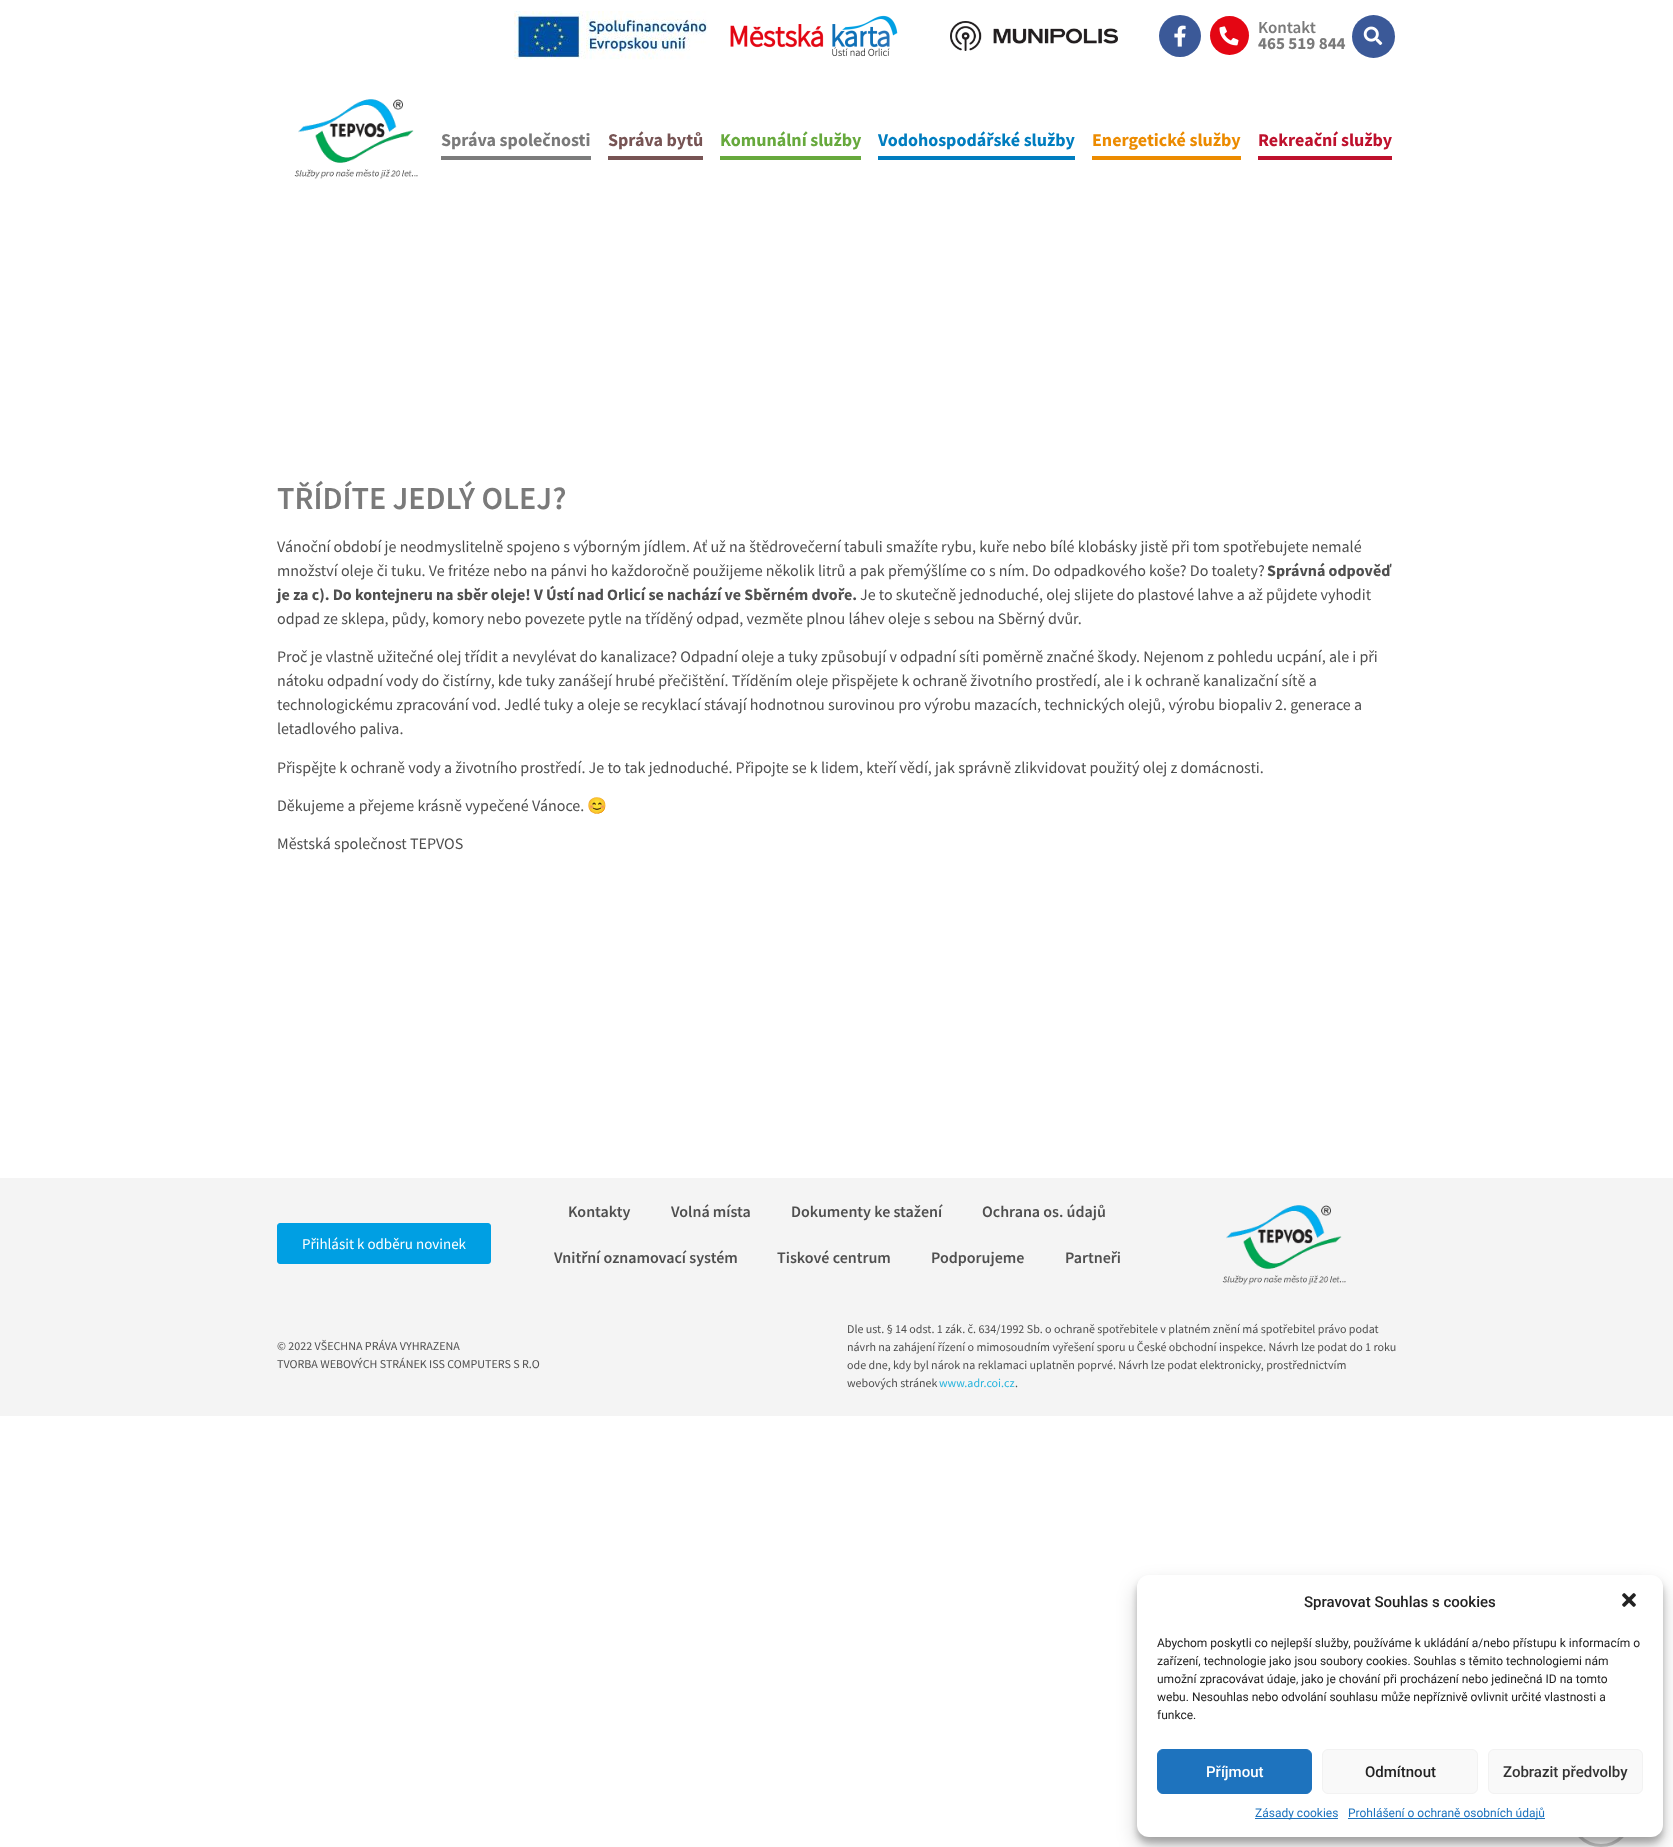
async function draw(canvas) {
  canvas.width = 1673
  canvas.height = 1847
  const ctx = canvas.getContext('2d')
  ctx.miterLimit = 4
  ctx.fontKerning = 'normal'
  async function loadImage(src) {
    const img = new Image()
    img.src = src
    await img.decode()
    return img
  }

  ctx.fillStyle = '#fff'
  ctx.fillRect(0, 0, 1673, 1847)
  ctx.drawImage(await loadImage('image0.png'), 514, 11, 194, 49)
  ctx.drawImage(await loadImage('image1.png'), 730, 15, 168, 42)
  ctx.drawImage(await loadImage('image2.png'), 950, 21, 168, 30)
  ctx.fillStyle = '#3b5998'
  ctx.beginPath()
  ctx.arc(1180, 36, 21, 0, 2 * Math.PI)
  ctx.fill()
  ctx.drawImage(await loadImage('image3.png'), 1174, 25, 12, 22)
  ctx.fillStyle = '#e40613'
  ctx.beginPath()
  ctx.arc(1229.5, 35.5, 19.5, 0, 2 * Math.PI)
  ctx.fill()
  ctx.drawImage(await loadImage('image4.png'), 1219, 26, 20, 20)
  ctx.font = '600 17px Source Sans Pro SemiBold'
  ctx.fillStyle = '#7a7a7a'
  ctx.fillText('Kontakt', 1258, 33)
  ctx.font = 'bold 17px Source Sans Pro'
  ctx.fillText('465 519 844', 1258, 49)
  ctx.fillStyle = '#3b5998'
  ctx.beginPath()
  ctx.arc(1373.5, 36.5, 21.5, 0, 2 * Math.PI)
  ctx.fill()
  ctx.drawImage(await loadImage('image5.png'), 1363, 26, 20, 19)
  ctx.drawImage(await loadImage('image6.png'), 294, 99, 124, 80)
  ctx.fillStyle = '#7c7c7c'
  ctx.fillRect(441, 156, 150, 4)
  ctx.font = 'bold 18px Source Sans Pro'
  ctx.fillStyle = '#7a7a7a'
  ctx.fillText('Správa společnosti', 441, 146)
  ctx.fillStyle = '#775454'
  ctx.fillRect(608, 156, 95, 4)
  ctx.fillText('Správa bytů', 608, 146)
  ctx.fillStyle = '#67a93d'
  ctx.fillRect(720, 156, 141, 4)
  ctx.fillText('Komunální služby', 720, 146)
  ctx.fillStyle = '#007dbf'
  ctx.fillRect(878, 156, 197, 4)
  ctx.fillText('Vodohospodářské služby', 878, 146)
  ctx.fillStyle = '#ec8b00'
  ctx.fillRect(1092, 156, 149, 4)
  ctx.fillText('Energetické služby', 1092, 146)
  ctx.fillStyle = '#be112d'
  ctx.fillRect(1258, 156, 134, 4)
  ctx.fillText('Rekreační služby', 1258, 146)
  ctx.font = '600 32px Source Sans Pro SemiBold'
  ctx.fillStyle = '#7a7a7a'
  ctx.fillText('TŘÍDÍTE JEDLÝ OLEJ?', 277, 509)
  ctx.font = '16px Source Sans Pro'
  ctx.fillStyle = '#4f4f4f'
  ctx.fillText('Vánoční období je neodmyslitelně spojeno s výborným jídlem. Ať už na štědrovečerní tabuli smažíte rybu, kuře nebo bílé klobásky jistě při tom spotřebujete nemalé', 277, 552)
  ctx.fillText('množství oleje či tuku. Ve fritéze nebo na pánvi ho každoročně použijeme několik litrů a pak přemýšlíme co s ním. Do odpadkového koše? Do toalety?', 277, 576)
  ctx.font = 'bold 16px Source Sans Pro'
  ctx.fillText('Správná odpověď', 1267, 576)
  ctx.fillText('je za c). Do kontejneru na sběr oleje! V Ústí nad Orlicí se nachází ve Sběrném dvoře.', 277, 600)
  ctx.font = '16px Source Sans Pro'
  ctx.fillText('Je to skutečně jednoduché, olej slijete do plastové lahve a až půjdete vyhodit', 860, 600)
  ctx.fillText('odpad ze sklepa, půdy, komory nebo povezete pytle na tříděný odpad, vezměte plnou láhev oleje s sebou na Sběrný dvůr.', 277, 624)
  ctx.fillText('Proč je vlastně užitečné olej třídit a nevylévat do kanalizace? Odpadní oleje a tuky způsobují v odpadní síti poměrně značné škody. Nejenom z pohledu ucpání, ale i při', 277, 662)
  ctx.fillText('nátoku odpadní vody do čistírny, kde tuky zanášejí hrubé přečištění. Tříděním oleje přispějete k ochraně životního prostředí, ale i k ochraně kanalizační sítě a', 277, 686)
  ctx.fillText('technologickému zpracování vod. Jedlé tuky a oleje se recyklací stávají hodnotnou surovinou pro výrobu mazacích, technických olejů, výrobu biopaliv 2. generace a', 277, 710)
  ctx.fillText('letadlového paliva.', 277, 734)
  ctx.fillText('Přispějte k ochraně vody a životního prostředí. Je to tak jednoduché. Připojte se k lidem, kteří vědí, jak správně zlikvidovat použitý olej z domácnosti.', 277, 773)
  ctx.fillText('Děkujeme a přejeme krásně vypečené Vánoce.', 277, 811)
  ctx.font = '16px Noto Color Emoji'
  ctx.fillText('😊', 587, 811)
  ctx.font = '16px Source Sans Pro'
  ctx.fillText('Městská společnost TEPVOS', 277, 849)
  ctx.fillStyle = '#f4f4f4'
  ctx.fillRect(0, 1178, 1673, 238)
  ctx.fillStyle = '#009fe3'
  ctx.beginPath()
  ctx.roundRect(277.5, 1223.5, 213, 40, 2.5)
  ctx.fill()
  ctx.strokeStyle = '#009fe3'
  ctx.stroke()
  ctx.font = '15px Source Sans Pro'
  ctx.fillStyle = '#fff'
  ctx.fillText('Přihlásit k odběru novinek', 302, 1249)
  ctx.font = '600 16px Source Sans Pro SemiBold'
  ctx.fillStyle = '#4f4f4f'
  ctx.fillText('Kontakty', 568, 1217)
  ctx.fillText('Volná místa', 671, 1217)
  ctx.fillText('Dokumenty ke stažení', 791, 1217)
  ctx.fillText('Ochrana os. údajů', 982, 1217)
  ctx.fillText('Vnitřní oznamovací systém', 554, 1263)
  ctx.fillText('Tiskové centrum', 777, 1263)
  ctx.fillText('Podporujeme', 931, 1263)
  ctx.fillText('Partneři', 1065, 1263)
  ctx.drawImage(await loadImage('image7.png'), 1222, 1205, 124, 80)
  ctx.font = '12px Source Sans Pro'
  ctx.fillText('© 2022 VŠECHNA PRÁVA VYHRAZENA', 277, 1350)
  ctx.fillText('TVORBA WEBOVÝCH STRÁNEK ISS COMPUTERS S R.O', 277, 1368)
  ctx.beginPath()
  ctx.arc(1601, 1816, 29.5, 0, 2 * Math.PI)
  ctx.strokeStyle = '#ccc'
  ctx.lineWidth = 3
  ctx.stroke()
  ctx.fillText('Dle ust. § 14 odst. 1 zák. č. 634/1992 Sb. o ochraně spotřebitele v platném znění má spotřebitel právo podat', 847, 1333)
  ctx.fillText('návrh na zahájení řízení o mimosoudním vyřešení sporu u České obchodní inspekce. Návrh lze podat do 1 roku', 847, 1351)
  ctx.fillText('ode dne, kdy byl nárok na reklamaci uplatněn poprvé. Návrh lze podat elektronicky, prostřednictvím', 847, 1369)
  ctx.fillText('webových stránek', 847, 1387)
  ctx.fillStyle = '#29b4dd'
  ctx.fillText('www.adr.coi.cz', 939, 1387)
  ctx.fillStyle = '#4f4f4f'
  ctx.fillText('.', 1015, 1387)
  ctx.fillStyle = '#0000003b'
  ctx.filter = 'blur(3px)'
  ctx.beginPath()
  ctx.roundRect(1137, 1581, 526, 262, 12)
  ctx.fill()
  ctx.filter = 'none'
  ctx.fillStyle = '#00000030'
  ctx.filter = 'blur(10px)'
  ctx.beginPath()
  ctx.roundRect(1137, 1585, 526, 262, 12)
  ctx.fill()
  ctx.filter = 'none'
  ctx.fillStyle = '#fff'
  ctx.beginPath()
  ctx.roundRect(1137, 1575, 526, 262, 12)
  ctx.fill()
  ctx.font = '500 15px Roboto'
  ctx.fillStyle = '#222'
  ctx.fillText('Spravovat Souhlas s cookies', 1304, 1607)
  ctx.drawImage(await loadImage('image8.png'), 1622, 1593, 14, 14)
  ctx.font = '12px Roboto'
  ctx.fillText('Abychom poskytli co nejlepší služby, používáme k ukládání a/nebo přístupu k informacím o', 1157, 1647)
  ctx.fillText('zařízení, technologie jako jsou soubory cookies. Souhlas s těmito technologiemi nám', 1157, 1665)
  ctx.fillText('umožní zpracovávat údaje, jako je chování při procházení nebo jedinečná ID na tomto', 1157, 1683)
  ctx.fillText('webu. Nesouhlas nebo odvolání souhlasu může nepříznivě ovlivnit určité vlastnosti a', 1157, 1701)
  ctx.fillText('funkce.', 1157, 1719)
  ctx.fillStyle = '#1e73be'
  ctx.beginPath()
  ctx.roundRect(1157.5, 1749.5, 154, 44, 5.5)
  ctx.fill()
  ctx.strokeStyle = '#1e73be'
  ctx.lineWidth = 1
  ctx.stroke()
  ctx.font = '500 15px Roboto'
  ctx.fillStyle = '#fff'
  ctx.fillText('Příjmout', 1206, 1777)
  ctx.fillStyle = '#f9f9f9'
  ctx.beginPath()
  ctx.roundRect(1322.5, 1749.5, 155, 44, 5.5)
  ctx.fill()
  ctx.strokeStyle = '#f2f2f2'
  ctx.stroke()
  ctx.fillStyle = '#222'
  ctx.fillText('Odmítnout', 1365, 1777)
  ctx.fillStyle = '#f9f9f9'
  ctx.beginPath()
  ctx.roundRect(1488.5, 1749.5, 154, 44, 5.5)
  ctx.fill()
  ctx.stroke()
  ctx.fillStyle = '#333'
  ctx.fillText('Zobrazit předvolby', 1503, 1777)
  ctx.fillStyle = '#1e73be'
  ctx.fillRect(1255, 1818, 83, 1)
  ctx.font = '12px Roboto'
  ctx.fillText('Zásady cookies', 1255, 1817)
  ctx.fillRect(1348, 1818, 197, 1)
  ctx.fillText('Prohlášení o ochraně osobních údajů', 1348, 1817)
}

draw(document.querySelector('canvas'))
